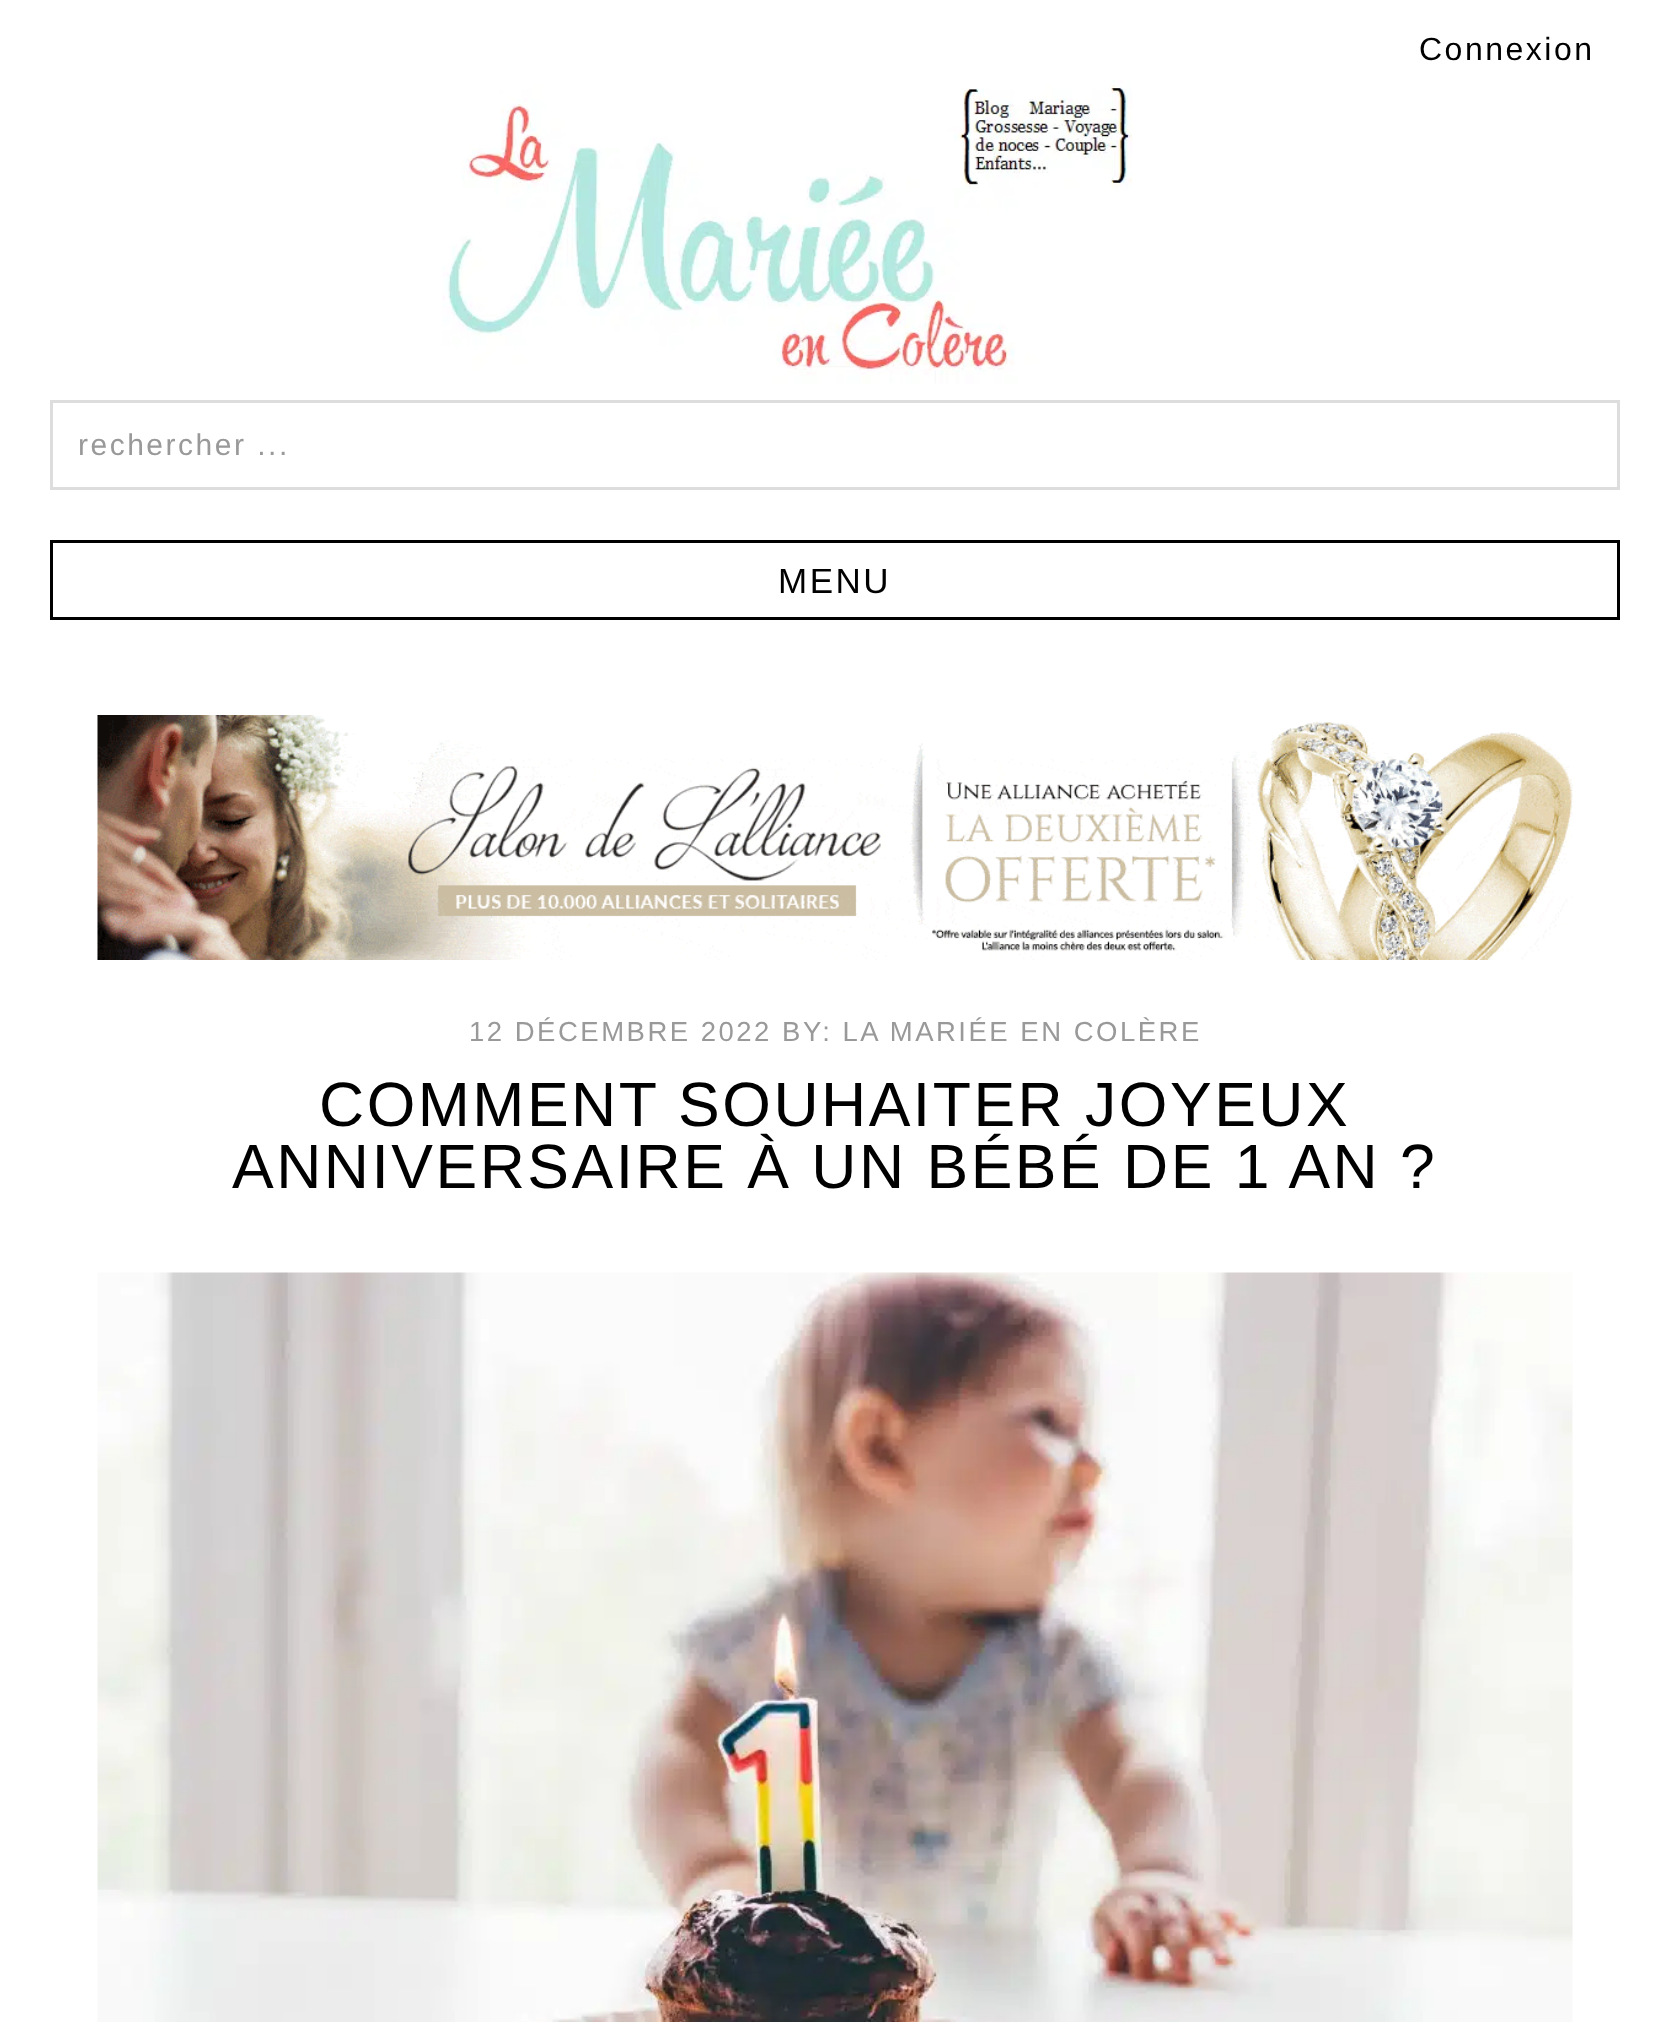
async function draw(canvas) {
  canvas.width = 1668
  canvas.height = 2022
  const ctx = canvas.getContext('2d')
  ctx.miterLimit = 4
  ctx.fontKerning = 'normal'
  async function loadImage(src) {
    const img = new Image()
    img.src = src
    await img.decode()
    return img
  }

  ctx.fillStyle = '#fff'
  ctx.fillRect(0, 0, 1668, 2022)
  ctx.letterSpacing = '2.5px'
  ctx.font = '32px Liberation Sans'
  ctx.fillStyle = '#000'
  ctx.fillText('Connexion', 1419, 60)
  ctx.drawImage(await loadImage('image0.png'), 442, 80, 691, 304)
  ctx.strokeStyle = '#ddd'
  ctx.lineWidth = 3
  ctx.strokeRect(51.5, 401.5, 1567, 87)
  ctx.font = '30px Liberation Sans'
  ctx.fillStyle = '#999'
  ctx.fillText('rechercher ...', 78, 455)
  ctx.strokeStyle = '#000'
  ctx.strokeRect(51.5, 541.5, 1567, 77)
  ctx.font = '35px Liberation Sans'
  ctx.fillStyle = '#000'
  ctx.fillText('MENU', 778, 593)
  ctx.drawImage(await loadImage('image1.png'), 97, 715, 1476, 245)
  ctx.font = '27.5px Liberation Sans'
  ctx.fillStyle = '#999'
  ctx.fillText('12 DÉCEMBRE 2022 BY: LA MARIÉE EN COLÈRE', 469, 1041)
  ctx.font = '62.5px Liberation Sans'
  ctx.fillStyle = '#000'
  ctx.fillText('COMMENT SOUHAITER JOYEUX', 319, 1126)
  ctx.fillText('ANNIVERSAIRE À UN BÉBÉ DE 1 AN ?', 232, 1188)
  ctx.drawImage(await loadImage('image2.png'), 97, 1272, 1476, 750)
}

draw(document.querySelector('canvas'))
